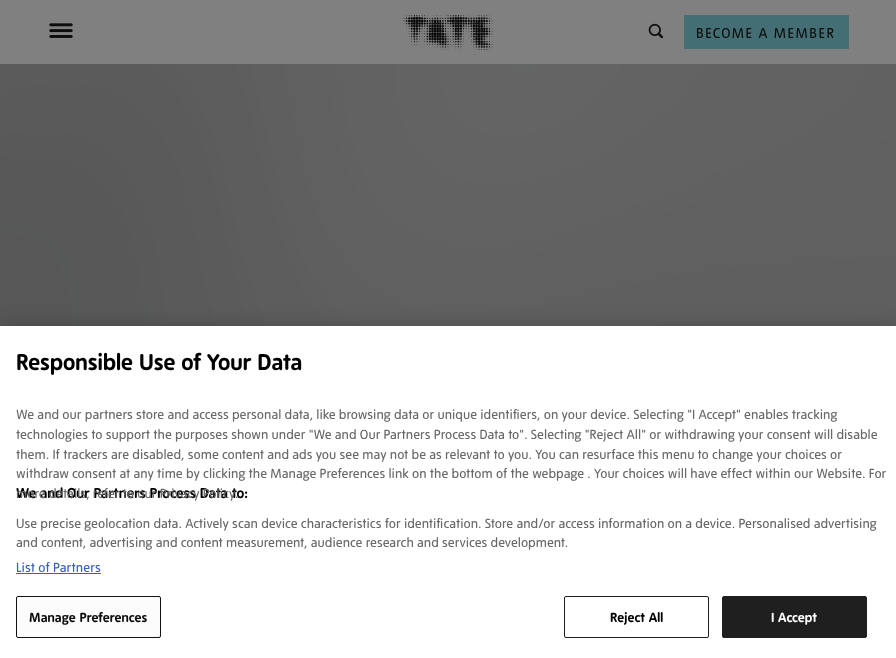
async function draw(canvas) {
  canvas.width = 896
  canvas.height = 658
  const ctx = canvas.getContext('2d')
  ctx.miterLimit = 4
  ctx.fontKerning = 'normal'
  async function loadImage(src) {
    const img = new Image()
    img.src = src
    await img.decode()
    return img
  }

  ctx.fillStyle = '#6f6f6f'
  ctx.fillRect(0, 0, 896, 658)
  ctx.fillStyle = '#808080'
  ctx.fillRect(0, 0, 896, 64)
  ctx.drawImage(await loadImage('image0.png'), 49, 23, 24, 15)
  ctx.drawImage(await loadImage('image1.png'), 403, 15, 90, 35)
  ctx.drawImage(await loadImage('image2.png'), 648, 23, 16, 16)
  ctx.fillStyle = '#436f74'
  ctx.fillRect(684, 15, 165, 34)
  ctx.letterSpacing = '1.5px'
  ctx.font = '14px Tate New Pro'
  ctx.fillStyle = '#0d0d0d'
  ctx.fillText('BECOME A MEMBER', 696, 38)
  ctx.drawImage(await loadImage('image3.png'), 0, 64, 896, 262)
  ctx.fillStyle = '#00000033'
  ctx.filter = 'blur(9px)'
  ctx.beginPath()
  ctx.rect(0, 326, 896, 332)
  ctx.fill()
  ctx.filter = 'none'
  ctx.fillStyle = '#fff'
  ctx.fillRect(0, 326, 896, 332)
  ctx.letterSpacing = '0px'
  ctx.font = 'bold 22.4px Tate New Pro'
  ctx.fillStyle = '#000'
  ctx.fillText('Responsible Use of Your Data', 16, 370)
  ctx.font = '13px Tate New Pro'
  ctx.fillStyle = '#696969'
  ctx.fillText('We and our partners store and access personal data, like browsing data or unique identifiers, on your device. Selecting "I Accept" enables tracking', 16, 419)
  ctx.fillText('technologies to support the purposes shown under "We and Our Partners Process Data to". Selecting "Reject All" or withdrawing your consent will disable', 16, 439)
  ctx.fillText('them. If trackers are disabled, some content and ads you see may not be as relevant to you. You can resurface this menu to change your choices or', 16, 459)
  ctx.fillText('withdraw consent at any time by clicking the Manage Preferences link on the bottom of the webpage . Your choices will have effect within our Website. For', 16, 478)
  ctx.font = 'bold 14.1px Tate New Pro'
  ctx.fillStyle = '#000'
  ctx.fillText('We and Our Partners Process Data to:', 16, 498)
  ctx.font = '13px Tate New Pro'
  ctx.fillStyle = '#696969'
  ctx.fillText('more details, refer to our Privacy Policy.', 16, 498)
  ctx.fillText('Use precise geolocation data. Actively scan device characteristics for identification. Store and/or access information on a device. Personalised advertising', 16, 528)
  ctx.fillText('and content, advertising and content measurement, audience research and services development.', 16, 547)
  ctx.letterSpacing = '0.1px'
  ctx.fillStyle = '#3860be'
  ctx.fillText('List of Partners', 16, 572)
  ctx.fillRect(16, 573, 85, 1)
  ctx.fillStyle = '#fcfcfc'
  ctx.beginPath()
  ctx.roundRect(16.5, 596.5, 144, 41, 1.5)
  ctx.fill()
  ctx.strokeStyle = '#111212'
  ctx.stroke()
  ctx.font = 'bold 13px Tate New Pro'
  ctx.fillStyle = '#0d0d0d'
  ctx.fillText('Manage Preferences', 29, 622)
  ctx.beginPath()
  ctx.roundRect(564.5, 596.5, 144, 41, 1.5)
  ctx.strokeStyle = '#1f1f1f'
  ctx.stroke()
  ctx.fillStyle = '#000'
  ctx.fillText('Reject All', 610, 622)
  ctx.fillStyle = '#1f1f1f'
  ctx.beginPath()
  ctx.roundRect(722.5, 596.5, 144, 41, 1.5)
  ctx.fill()
  ctx.stroke()
  ctx.fillStyle = '#fff'
  ctx.fillText('I Accept', 771, 622)
}

draw(document.querySelector('canvas'))
